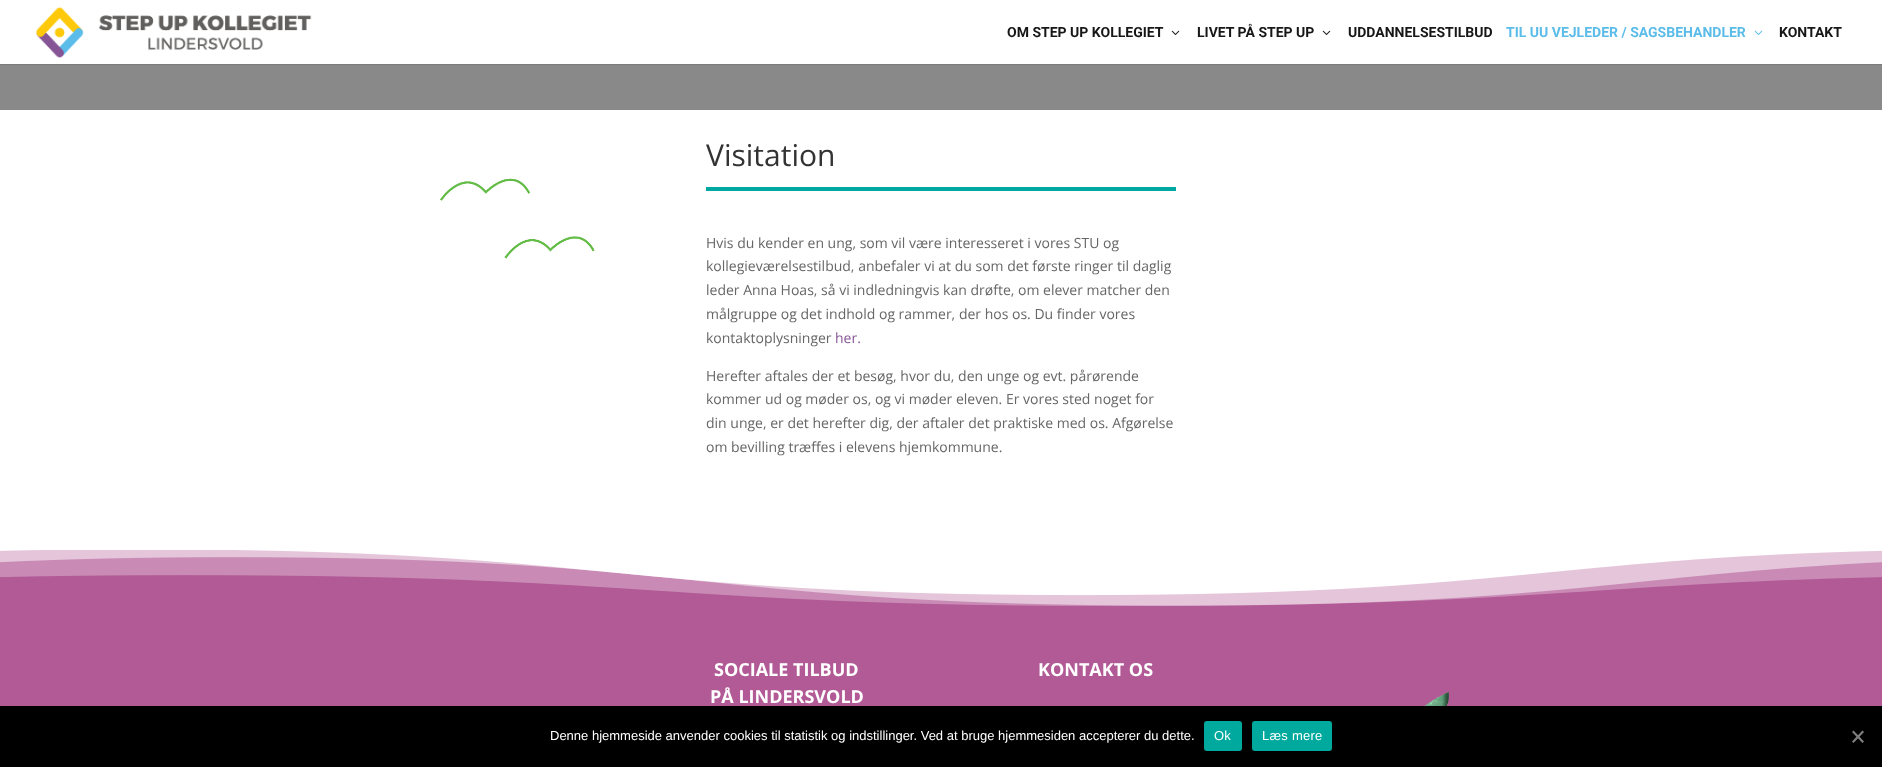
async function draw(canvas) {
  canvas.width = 1882
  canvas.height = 767
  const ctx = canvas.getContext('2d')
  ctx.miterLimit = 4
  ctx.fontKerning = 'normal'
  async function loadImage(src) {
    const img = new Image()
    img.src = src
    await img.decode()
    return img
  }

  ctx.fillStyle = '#898989'
  ctx.fillRect(0, 0, 1882, 767)
  ctx.fillStyle = '#7b7b7b'
  ctx.fillRect(0, 64, 1882, 1)
  ctx.fillStyle = '#fff'
  ctx.fillRect(0, 0, 1882, 64)
  ctx.drawImage(await loadImage('image0.png'), 35, 7, 277, 51)
  ctx.font = 'bold 14px Roboto'
  ctx.fillStyle = '#171717'
  ctx.fillText('OM STEP UP KOLLEGIET', 1007, 37)
  ctx.drawImage(await loadImage('image1.png'), 1171, 30, 9, 5)
  ctx.fillText('LIVET PÅ STEP UP', 1197, 37)
  ctx.drawImage(await loadImage('image1.png'), 1322, 30, 9, 5)
  ctx.fillText('UDDANNELSESTILBUD', 1348, 37)
  ctx.fillStyle = '#5bbcea'
  ctx.fillText('TIL UU VEJLEDER / SAGSBEHANDLER', 1506, 37)
  ctx.drawImage(await loadImage('image2.png'), 1754, 30, 9, 5)
  ctx.fillStyle = '#171717'
  ctx.fillText('KONTAKT', 1779, 37)
  ctx.fillStyle = '#fff'
  ctx.fillRect(0, 110, 1882, 440)
  ctx.drawImage(await loadImage('image3.png'), 440, 178, 155, 81)
  ctx.font = '30px Open Sans'
  ctx.fillStyle = '#333'
  ctx.fillText('Visitation', 706, 166)
  ctx.fillStyle = '#00a8a2'
  ctx.fillRect(706, 187, 470, 4)
  ctx.font = '14px Open Sans'
  ctx.fillStyle = '#666'
  ctx.fillText('Hvis du kender en ung, som vil være interesseret i vores STU og', 706, 248)
  ctx.fillText('kollegieværelsestilbud, anbefaler vi at du som det første ringer til daglig', 706, 271)
  ctx.fillText('leder Anna Hoas, så vi indledningvis kan drøfte, om elever matcher den', 706, 295)
  ctx.fillText('målgruppe og det indhold og rammer, der hos os. Du finder vores', 706, 319)
  ctx.fillText('kontaktoplysninger', 706, 343)
  ctx.fillStyle = '#865595'
  ctx.fillText('her.', 835, 343)
  ctx.fillStyle = '#666'
  ctx.fillText('Herefter aftales der et besøg, hvor du, den unge og evt. pårørende', 706, 381)
  ctx.fillText('kommer ud og møder os, og vi møder eleven. Er vores sted noget for', 706, 404)
  ctx.fillText('din unge, er det herefter dig, der aftaler det praktiske med os. Afgørelse', 706, 428)
  ctx.fillText('om bevilling træffes i elevens hjemkommune.', 706, 452)
  ctx.fillStyle = '#b25a96'
  ctx.fillRect(0, 550, 1882, 156)
  ctx.drawImage(await loadImage('image4.png'), 0, 550, 1882, 56)
  ctx.font = 'bold 18px Open Sans'
  ctx.fillStyle = '#fff'
  ctx.fillText('SOCIALE TILBUD', 714, 676)
  ctx.fillText('PÅ LINDERSVOLD', 710, 703)
  ctx.fillText('KONTAKT OS', 1038, 676)
  ctx.drawImage(await loadImage('image5.png'), 1424, 692, 25, 14)
  ctx.fillStyle = '#000'
  ctx.fillRect(0, 706, 1882, 61)
  ctx.font = '13px Liberation Sans'
  ctx.fillStyle = '#fff'
  ctx.fillText('Denne hjemmeside anvender cookies til statistik og indstillinger. Ved at bruge hjemmesiden accepterer du dette.', 550, 740)
  ctx.fillStyle = '#00a99d'
  ctx.beginPath()
  ctx.roundRect(1204, 721, 38, 30, 3)
  ctx.fill()
  ctx.letterSpacing = '0.25px'
  ctx.fillStyle = '#fff'
  ctx.fillText('Ok', 1214, 740)
  ctx.fillStyle = '#00a99d'
  ctx.beginPath()
  ctx.roundRect(1252, 721, 80, 30, 3)
  ctx.fill()
  ctx.fillStyle = '#fff'
  ctx.fillText('Læs mere', 1262, 740)
  ctx.fillStyle = '#808080'
  ctx.beginPath()
  ctx.moveTo(1862.5, 730.5)
  ctx.lineTo(1864, 732)
  ctx.lineTo(1853.5, 743)
  ctx.lineTo(1852, 741.5)
  ctx.closePath()
  ctx.fill()
  ctx.beginPath()
  ctx.moveTo(1852, 732)
  ctx.lineTo(1853.5, 730.5)
  ctx.lineTo(1864, 741.5)
  ctx.lineTo(1862.5, 743)
  ctx.closePath()
  ctx.fill()
}

draw(document.querySelector('canvas'))
